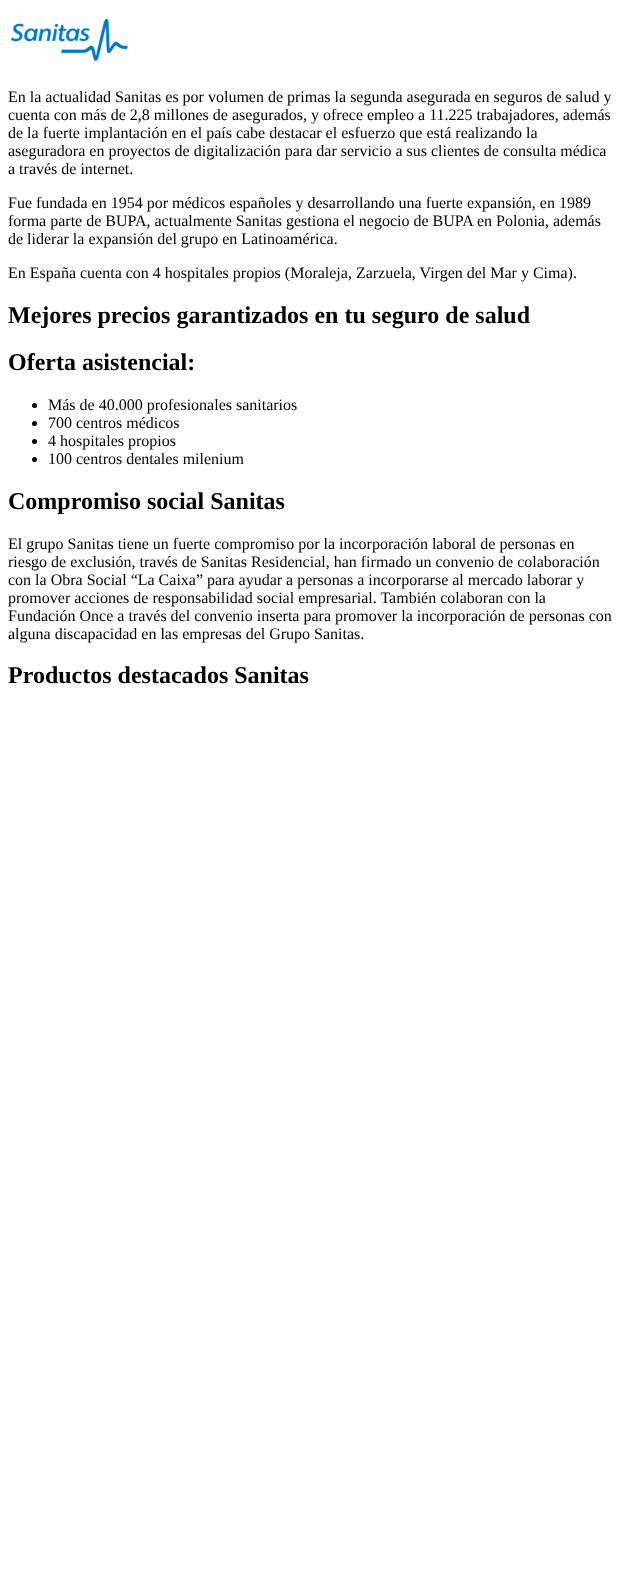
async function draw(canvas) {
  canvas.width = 623
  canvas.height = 1579
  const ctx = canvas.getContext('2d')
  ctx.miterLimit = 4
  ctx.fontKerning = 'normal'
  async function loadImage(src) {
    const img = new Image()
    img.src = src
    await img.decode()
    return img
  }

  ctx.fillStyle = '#fff'
  ctx.fillRect(0, 0, 623, 1579)
  ctx.drawImage(await loadImage('image0.png'), 11, 19, 117, 42)
  ctx.font = '16px Liberation Serif'
  ctx.fillStyle = '#000'
  ctx.fillText('En la actualidad Sanitas es por volumen de primas la segunda asegurada en seguros de salud y', 8, 102)
  ctx.fillText('cuenta con más de 2,8 millones de asegurados, y ofrece empleo a 11.225 trabajadores, además', 8, 120)
  ctx.fillText('de la fuerte implantación en el país cabe destacar el esfuerzo que está realizando la', 8, 138)
  ctx.fillText('aseguradora en proyectos de digitalización para dar servicio a sus clientes de consulta médica', 8, 156)
  ctx.fillText('a través de internet.', 8, 174)
  ctx.fillText('Fue fundada en 1954 por médicos españoles y desarrollando una fuerte expansión, en 1989', 8, 208)
  ctx.fillText('forma parte de BUPA, actualmente Sanitas gestiona el negocio de BUPA en Polonia, además', 8, 226)
  ctx.fillText('de liderar la expansión del grupo en Latinoamérica.', 8, 244)
  ctx.fillText('En España cuenta con 4 hospitales propios (Moraleja, Zarzuela, Virgen del Mar y Cima).', 8, 278)
  ctx.font = 'bold 24px Liberation Serif'
  ctx.fillText('Mejores precios garantizados en tu seguro de salud', 8, 323)
  ctx.fillText('Oferta asistencial:', 8, 370)
  ctx.beginPath()
  ctx.arc(34.5, 405.5, 2.5, 0, 2 * Math.PI)
  ctx.fill()
  ctx.font = '16px Liberation Serif'
  ctx.fillText('Más de 40.000 profesionales sanitarios', 48, 410)
  ctx.beginPath()
  ctx.arc(34.5, 423.5, 2.5, 0, 2 * Math.PI)
  ctx.fill()
  ctx.fillText('700 centros médicos', 48, 428)
  ctx.beginPath()
  ctx.arc(34.5, 441.5, 2.5, 0, 2 * Math.PI)
  ctx.fill()
  ctx.fillText('4 hospitales propios', 48, 446)
  ctx.beginPath()
  ctx.arc(34.5, 459.5, 2.5, 0, 2 * Math.PI)
  ctx.fill()
  ctx.fillText('100 centros dentales milenium', 48, 464)
  ctx.font = 'bold 24px Liberation Serif'
  ctx.fillText('Compromiso social Sanitas', 8, 509)
  ctx.font = '16px Liberation Serif'
  ctx.fillText('El grupo Sanitas tiene un fuerte compromiso por la incorporación laboral de personas en', 8, 549)
  ctx.fillText('riesgo de exclusión, través de Sanitas Residencial, han firmado un convenio de colaboración', 8, 567)
  ctx.fillText('con la Obra Social “La Caixa” para ayudar a personas a incorporarse al mercado laborar y', 8, 585)
  ctx.fillText('promover acciones de responsabilidad social empresarial. También colaboran con la', 8, 603)
  ctx.fillText('Fundación Once a través del convenio inserta para promover la incorporación de personas con', 8, 621)
  ctx.fillText('alguna discapacidad en las empresas del Grupo Sanitas.', 8, 639)
  ctx.font = 'bold 24px Liberation Serif'
  ctx.fillText('Productos destacados Sanitas', 8, 683)
}

draw(document.querySelector('canvas'))
